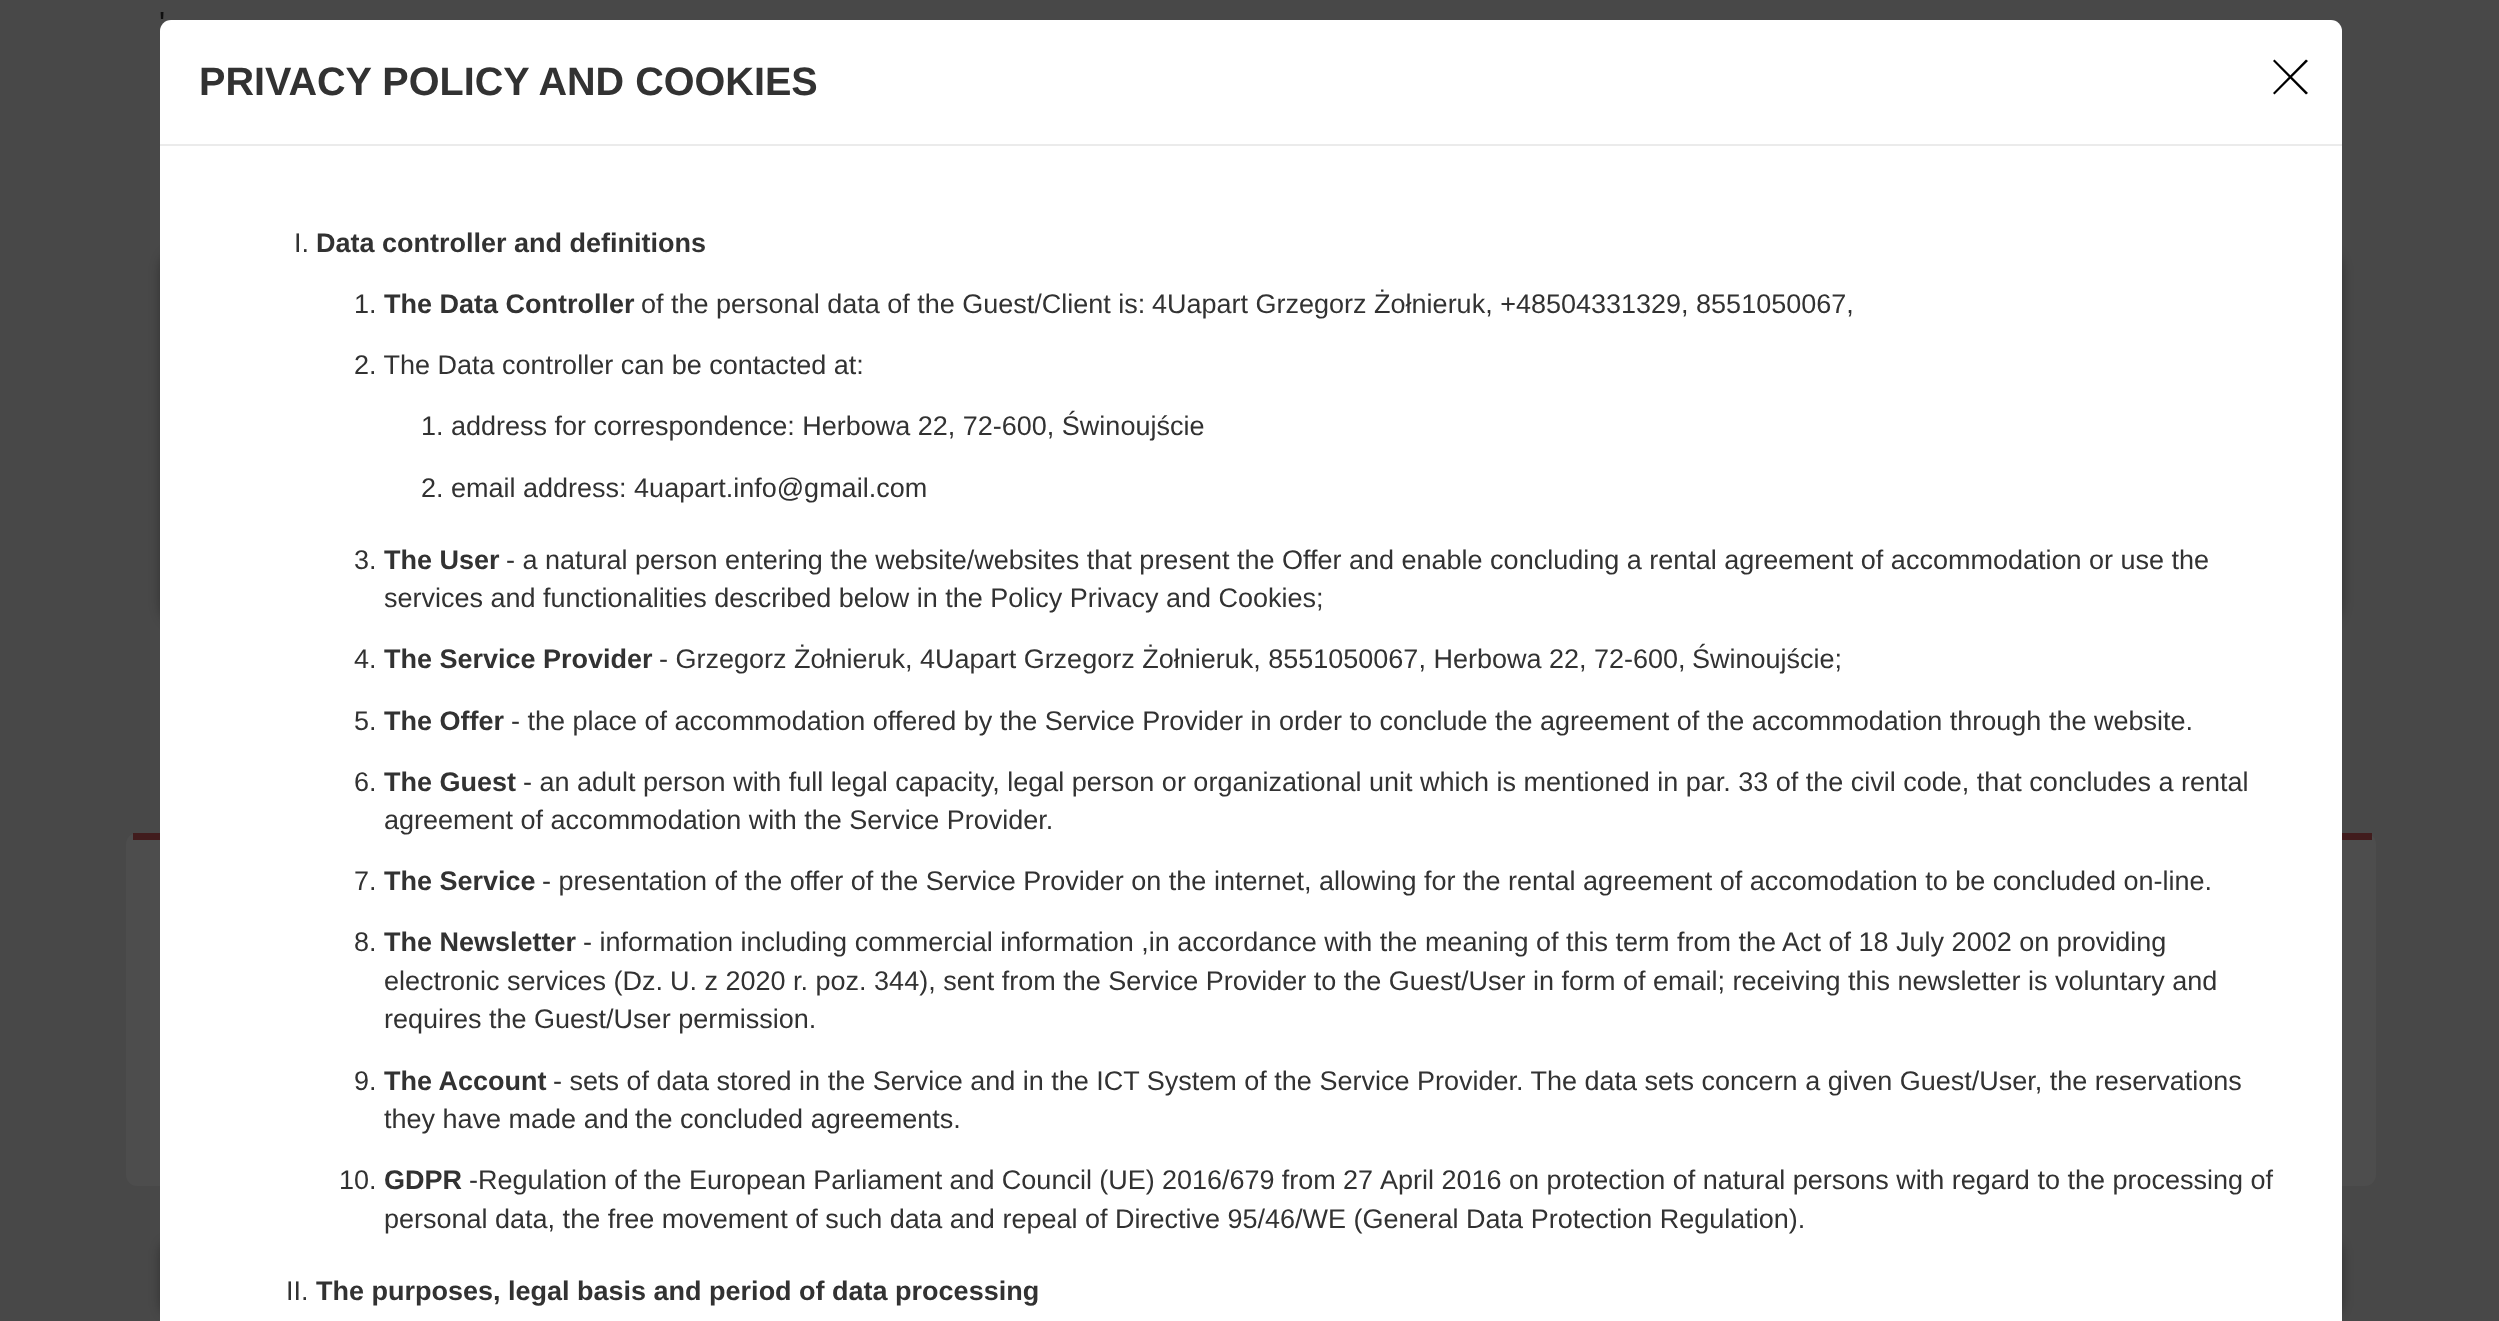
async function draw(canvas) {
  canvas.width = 2499
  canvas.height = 1321
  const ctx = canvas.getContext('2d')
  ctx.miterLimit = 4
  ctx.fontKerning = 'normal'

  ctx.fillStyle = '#484848'
  ctx.fillRect(0, 0, 2499, 1321)
  ctx.font = '32px Liberation Sans'
  ctx.fillStyle = '#0f0f0f'
  ctx.fillText('\'', 159, 34)
  ctx.fillStyle = '#0000004d'
  ctx.filter = 'blur(5.5px)'
  ctx.beginPath()
  ctx.roundRect(160, 248, 2182, 378, 23)
  ctx.fill()
  ctx.filter = 'none'
  ctx.fillStyle = '#4d4d4d'
  ctx.beginPath()
  ctx.roundRect(126, 833, 2250, 353, 11)
  ctx.fill()
  ctx.fillStyle = '#411c1d'
  ctx.fillRect(133, 833, 2239, 7)
  ctx.fillStyle = '#0000004d'
  ctx.filter = 'blur(5.5px)'
  ctx.beginPath()
  ctx.roundRect(160, 1242, 2182, 72, 11)
  ctx.fill()
  ctx.filter = 'none'
  ctx.fillStyle = '#fff'
  ctx.beginPath()
  ctx.roundRect(160, 20, 2182, 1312, 11)
  ctx.fill()
  ctx.fillStyle = '#ebebeb'
  ctx.fillRect(160, 144, 2182, 2)
  ctx.font = 'bold 39.6px Liberation Sans'
  ctx.fillStyle = '#323232'
  ctx.fillText('PRIVACY POLICY AND COOKIES', 199, 95)
  ctx.fillStyle = '#000'
  ctx.beginPath()
  ctx.moveTo(2274.5, 59.5)
  ctx.lineTo(2308, 93)
  ctx.lineTo(2306, 94.5)
  ctx.lineTo(2273, 61)
  ctx.closePath()
  ctx.fill()
  ctx.beginPath()
  ctx.moveTo(2273, 93)
  ctx.lineTo(2306, 59.5)
  ctx.lineTo(2308, 61)
  ctx.lineTo(2274.5, 94.5)
  ctx.closePath()
  ctx.fill()
  ctx.font = '27px Liberation Sans'
  ctx.fillStyle = '#323232'
  ctx.fillText('I.', 294, 252)
  ctx.font = 'bold 27px Liberation Sans'
  ctx.fillText('Data controller and definitions', 316, 252)
  ctx.font = '27px Liberation Sans'
  ctx.fillText('1.', 354, 313)
  ctx.font = 'bold 27px Liberation Sans'
  ctx.fillText('The Data Controller', 384, 313)
  ctx.font = '27px Liberation Sans'
  ctx.fillText('of the personal data of the Guest/Client is:', 641, 313)
  ctx.fillText('4Uapart Grzegorz Żołnieruk, +48504331329, 8551050067,', 1152, 313)
  ctx.fillText('2. The Data controller can be contacted at:', 354, 374)
  ctx.fillText('1.', 421, 435)
  ctx.fillText('address for correspondence: Herbowa 22, 72-600, Świnoujście', 451, 435)
  ctx.fillText('2. email address: 4uapart.info@gmail.com', 421, 497)
  ctx.fillText('3.', 354, 569)
  ctx.font = 'bold 27px Liberation Sans'
  ctx.fillText('The User', 384, 569)
  ctx.font = '27px Liberation Sans'
  ctx.fillText('- a natural person entering the website/websites that present the Offer and enable concluding a rental agreement of accommodation or use the', 506, 569)
  ctx.fillText('services and functionalities described below in the Policy Privacy and Cookies;', 384, 607)
  ctx.fillText('4.', 354, 668)
  ctx.font = 'bold 27px Liberation Sans'
  ctx.fillText('The Service Provider', 384, 668)
  ctx.font = '27px Liberation Sans'
  ctx.fillText('- Grzegorz Żołnieruk, 4Uapart Grzegorz Żołnieruk, 8551050067, Herbowa 22, 72-600,', 659, 668)
  ctx.fillText('Świnoujście;', 1692, 668)
  ctx.fillText('5.', 354, 730)
  ctx.font = 'bold 27px Liberation Sans'
  ctx.fillText('The Offer', 384, 730)
  ctx.font = '27px Liberation Sans'
  ctx.fillText('- the place of accommodation offered by the Service Provider in order to conclude the agreement of the accommodation through the website.', 511, 730)
  ctx.fillText('6.', 354, 791)
  ctx.font = 'bold 27px Liberation Sans'
  ctx.fillText('The Guest', 384, 791)
  ctx.font = '27px Liberation Sans'
  ctx.fillText('- an adult person with full legal capacity, legal person or organizational unit which is mentioned in par. 33 of the civil code, that concludes a rental', 523, 791)
  ctx.fillText('agreement of accommodation with the Service Provider.', 384, 829)
  ctx.fillText('7.', 354, 890)
  ctx.font = 'bold 27px Liberation Sans'
  ctx.fillText('The Service', 384, 890)
  ctx.font = '27px Liberation Sans'
  ctx.fillText('- presentation of the offer of the Service Provider on the internet, allowing for the rental agreement of accomodation to be concluded on-line.', 542, 890)
  ctx.fillText('8.', 354, 951)
  ctx.font = 'bold 27px Liberation Sans'
  ctx.fillText('The Newsletter', 384, 951)
  ctx.font = '27px Liberation Sans'
  ctx.fillText('- information including commercial information ,in accordance with the meaning of this term from the Act of 18 July 2002 on providing', 583, 951)
  ctx.fillText('electronic services (Dz.', 384, 990)
  ctx.fillText('U. z 2020 r. poz. 344), sent from the Service Provider to the Guest/User in form of email; receiving this newsletter is voluntary and', 670, 990)
  ctx.fillText('requires the Guest/User permission.', 384, 1028)
  ctx.fillText('9.', 354, 1090)
  ctx.font = 'bold 27px Liberation Sans'
  ctx.fillText('The Account', 384, 1090)
  ctx.font = '27px Liberation Sans'
  ctx.fillText('- sets of data stored in the Service and in the ICT System of the Service Provider. The data sets concern a given Guest/User, the reservations', 553, 1090)
  ctx.fillText('they have made and', 384, 1128)
  ctx.fillText('the concluded agreements.', 635, 1128)
  ctx.fillText('10.', 339, 1189)
  ctx.font = 'bold 27px Liberation Sans'
  ctx.fillText('GDPR', 384, 1189)
  ctx.wordSpacing = '-0.25px'
  ctx.font = '27px Liberation Sans'
  ctx.fillText('-Regulation of the European Parliament and Council (UE) 2016/679 from 27', 469, 1189)
  ctx.wordSpacing = '0px'
  ctx.fillText('April 2016 on protection of natural persons with regard to the processing of', 1380, 1189)
  ctx.fillText('personal data, the free movement of such data and repeal of Directive 95/46/WE (General Data Protection Regulation).', 384, 1228)
  ctx.fillText('II.', 286, 1300)
  ctx.font = 'bold 27px Liberation Sans'
  ctx.fillText('The purposes, legal basis and period of data processing', 316, 1300)
}

draw(document.querySelector('canvas'))
